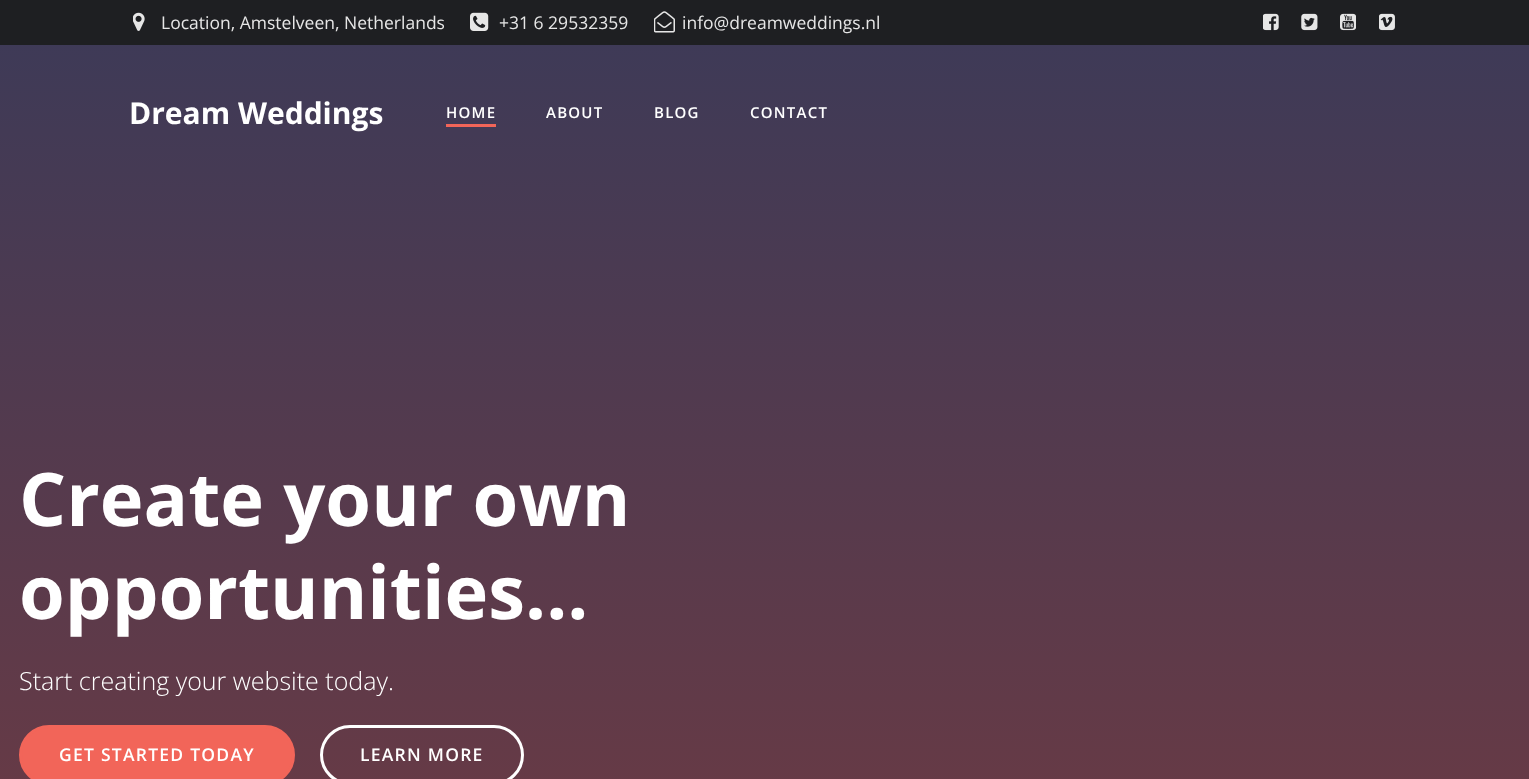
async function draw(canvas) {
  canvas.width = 1529
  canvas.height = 779
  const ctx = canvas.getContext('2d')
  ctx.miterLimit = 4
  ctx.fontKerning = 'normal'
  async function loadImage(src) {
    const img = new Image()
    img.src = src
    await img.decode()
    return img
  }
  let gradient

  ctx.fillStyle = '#fff'
  ctx.fillRect(0, 0, 1529, 779)
  gradient = ctx.createLinearGradient(765, 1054, 765, 0)
  gradient.addColorStop(0, '#743a40')
  gradient.addColorStop(1, '#3c3a58')
  ctx.fillStyle = gradient
  ctx.fillRect(0, 45, 1529, 734)
  ctx.fillStyle = '#1e1f22'
  ctx.fillRect(0, 0, 1529, 45)
  ctx.drawImage(await loadImage('image0.png'), 133, 12, 12, 19)
  ctx.font = '17.5px Open Sans'
  ctx.fillStyle = '#e6e6e6'
  ctx.fillText('Location, Amstelveen, Netherlands', 161, 29)
  ctx.drawImage(await loadImage('image1.png'), 470, 12, 19, 19)
  ctx.fillText('+31 6 29532359', 499, 29)
  ctx.drawImage(await loadImage('image2.png'), 654, 11, 21, 22)
  ctx.fillText('info@dreamweddings.nl', 682, 29)
  ctx.drawImage(await loadImage('image3.png'), 1263, 13, 16, 18)
  ctx.drawImage(await loadImage('image4.png'), 1301, 13, 17, 18)
  ctx.drawImage(await loadImage('image5.png'), 1340, 13, 16, 18)
  ctx.drawImage(await loadImage('image6.png'), 1379, 13, 16, 18)
  ctx.font = 'bold 30px Open Sans'
  ctx.fillStyle = '#fff'
  ctx.fillText('Dream Weddings', 129, 124)
  ctx.letterSpacing = '1.25px'
  ctx.font = '600 15px Open Sans'
  ctx.fillText('HOME', 446, 118)
  ctx.fillStyle = '#f26559'
  ctx.fillRect(446, 124, 50, 3)
  ctx.fillStyle = '#fff'
  ctx.fillText('ABOUT', 546, 118)
  ctx.fillText('BLOG', 654, 118)
  ctx.fillText('CONTACT', 750, 118)
  ctx.letterSpacing = '0px'
  ctx.font = 'bold 74px Open Sans'
  ctx.fillText('Create your own', 19, 526)
  ctx.fillText('opportunities...', 19, 619)
  ctx.font = '300 25px Open Sans'
  ctx.fillText('Start creating your website today.', 19, 690)
  ctx.fillStyle = '#f26559'
  ctx.beginPath()
  ctx.roundRect(20.5, 726.5, 273, 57, 28.5)
  ctx.fill()
  ctx.strokeStyle = '#f26559'
  ctx.lineWidth = 3
  ctx.stroke()
  ctx.letterSpacing = '1.25px'
  ctx.font = '600 17.5px Open Sans'
  ctx.fillStyle = '#fff'
  ctx.fillText('GET STARTED TODAY', 59, 761)
  ctx.beginPath()
  ctx.roundRect(321.5, 726.5, 201, 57, 28.5)
  ctx.strokeStyle = '#fff'
  ctx.stroke()
  ctx.fillText('LEARN MORE', 360, 761)
}

draw(document.querySelector('canvas'))
